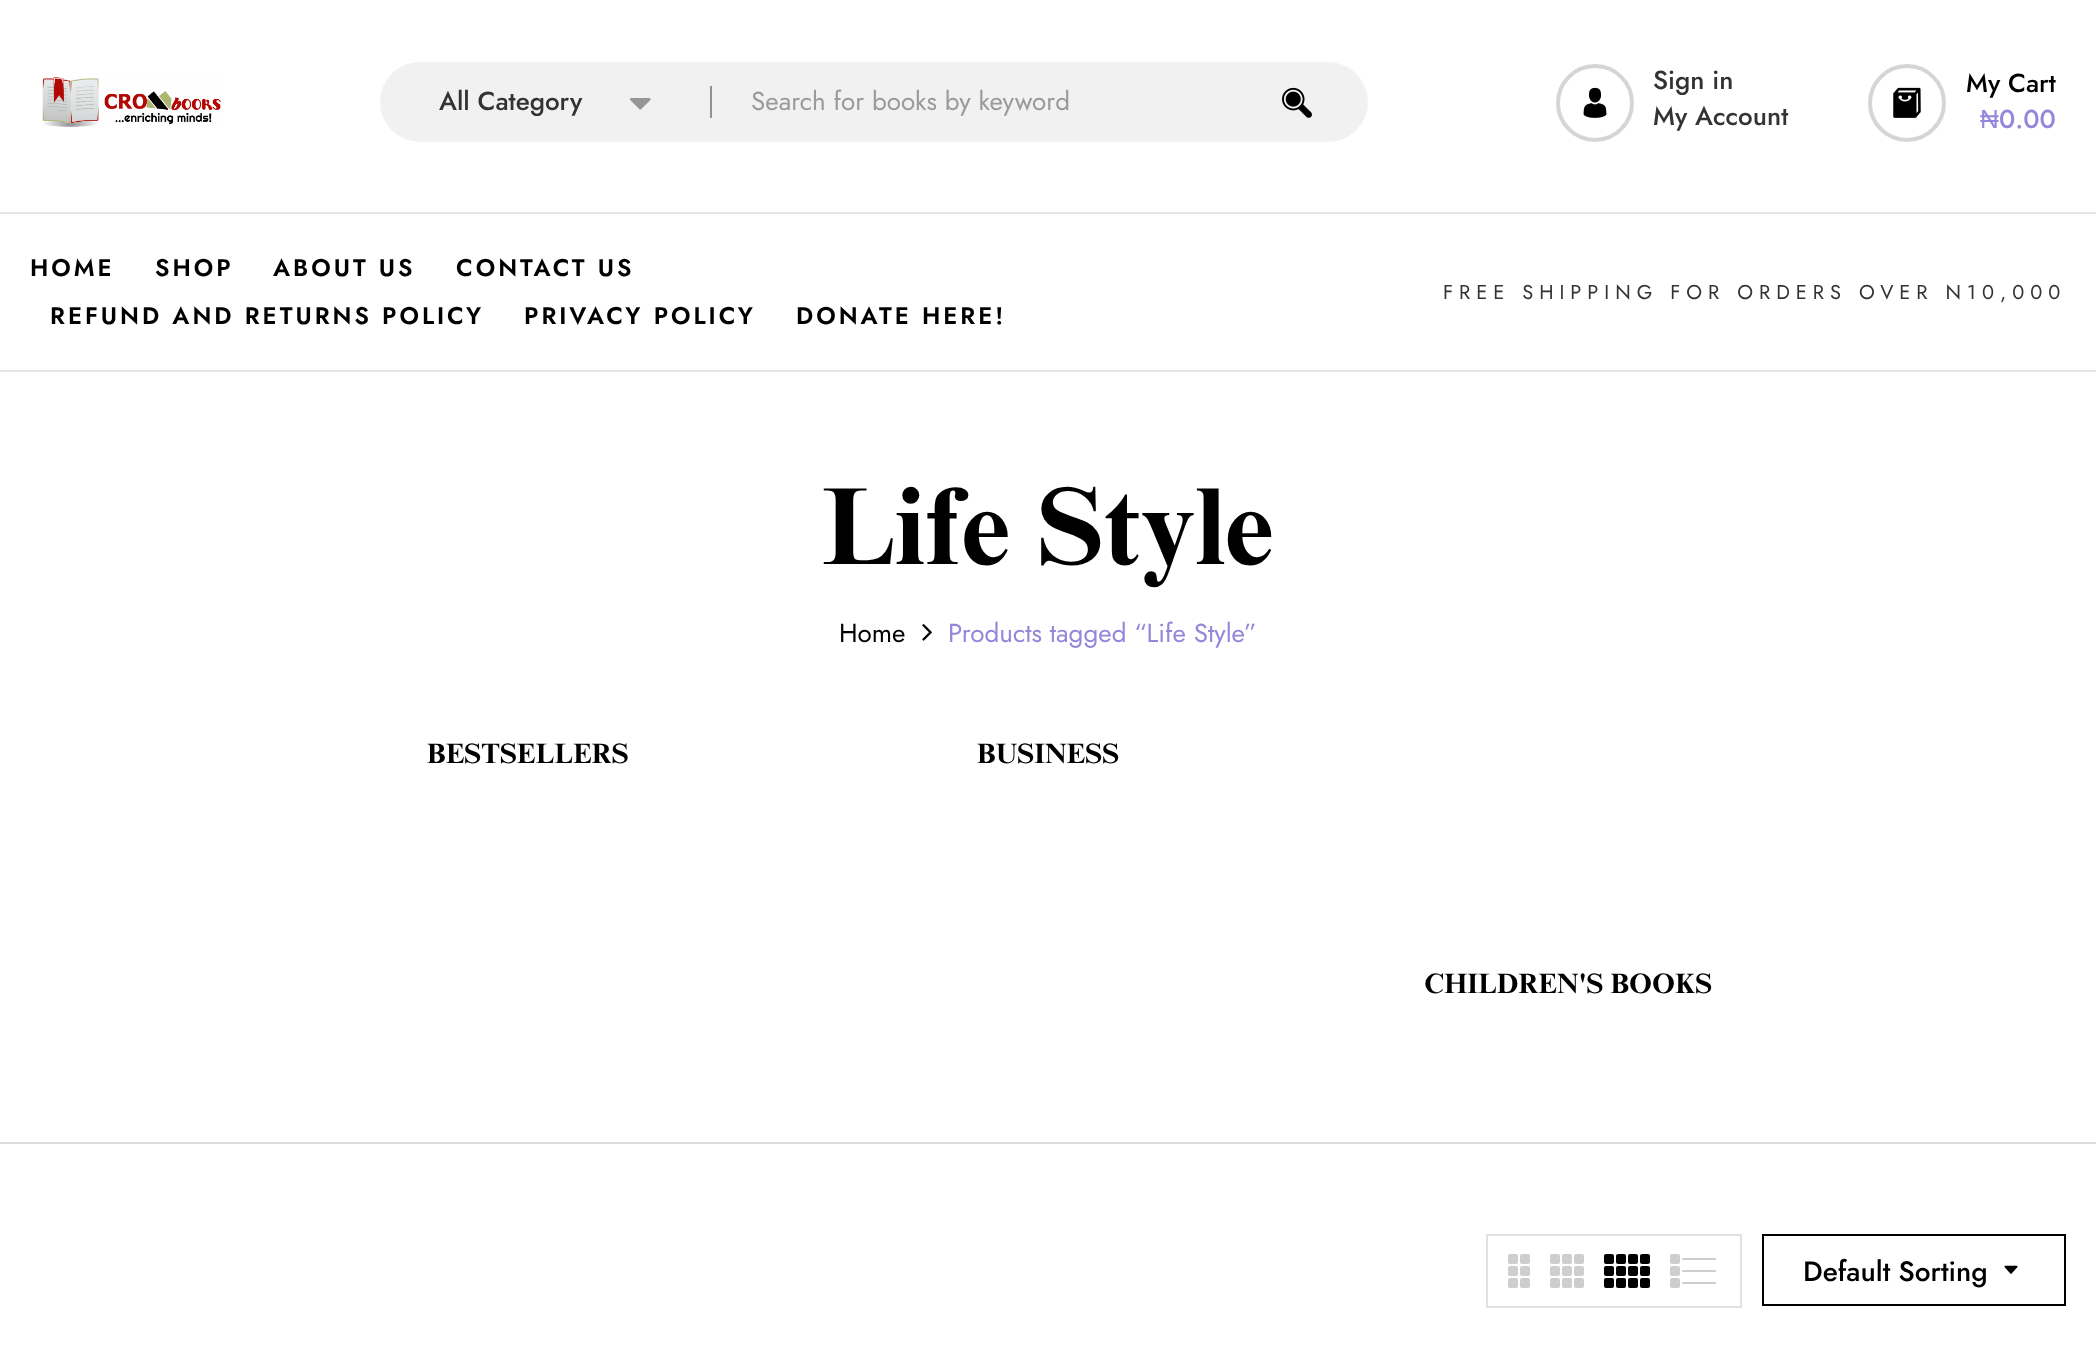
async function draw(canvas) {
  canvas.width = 2096
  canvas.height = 1354
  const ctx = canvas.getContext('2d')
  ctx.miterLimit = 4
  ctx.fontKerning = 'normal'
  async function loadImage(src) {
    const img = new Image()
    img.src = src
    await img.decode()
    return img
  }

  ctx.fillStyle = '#fff'
  ctx.fillRect(0, 0, 2096, 1354)
  ctx.fillStyle = '#e5e5e5'
  ctx.fillRect(0, 370, 2096, 2)
  ctx.fillStyle = '#e6e6e6'
  ctx.fillRect(0, 212, 2096, 2)
  ctx.drawImage(await loadImage('image0.png'), 42, 77, 179, 50)
  ctx.fillStyle = '#f1f1f1'
  ctx.beginPath()
  ctx.roundRect(380, 62, 988, 80, 40)
  ctx.fill()
  ctx.font = '500 26px Jost'
  ctx.fillStyle = '#333'
  ctx.fillText('All Category', 439, 110)
  ctx.drawImage(await loadImage('image1.png'), 630, 98, 21, 12)
  ctx.fillStyle = '#929292'
  ctx.fillRect(710, 86, 2, 32)
  ctx.font = '26px Jost'
  ctx.fillStyle = '#9a9a9a'
  ctx.fillText('Search for books by keyword', 751, 110)
  ctx.drawImage(await loadImage('image2.png'), 1282, 87, 30, 31)
  ctx.beginPath()
  ctx.arc(1595, 103, 37, 0, 2 * Math.PI)
  ctx.strokeStyle = '#d5d5d5'
  ctx.lineWidth = 4
  ctx.stroke()
  ctx.drawImage(await loadImage('image3.png'), 1583, 87, 24, 31)
  ctx.font = '500 26px Jost'
  ctx.fillStyle = '#333'
  ctx.fillText('Sign in', 1653, 89)
  ctx.fillText('My Account', 1653, 125)
  ctx.beginPath()
  ctx.arc(1907, 103, 37, 0, 2 * Math.PI)
  ctx.stroke()
  ctx.drawImage(await loadImage('image4.png'), 1893, 87, 28, 31)
  ctx.fillStyle = '#000'
  ctx.fillText('My Cart', 1966, 92)
  ctx.font = '26px Liberation Sans'
  ctx.fillStyle = '#9387d9'
  ctx.fillText('₦', 1980, 128)
  ctx.font = '500 26px Jost'
  ctx.fillText('0.00', 1999, 128)
  ctx.letterSpacing = '3px'
  ctx.font = '600 24px Jost'
  ctx.fillStyle = '#000'
  ctx.fillText('HOME', 30, 276)
  ctx.fillText('SHOP', 155, 276)
  ctx.fillText('ABOUT US', 273, 276)
  ctx.fillText('CONTACT US', 456, 276)
  ctx.fillText('REFUND AND RETURNS POLICY', 50, 324)
  ctx.fillText('PRIVACY POLICY', 524, 324)
  ctx.fillText('DONATE HERE!', 796, 324)
  ctx.letterSpacing = '6px'
  ctx.font = '20px Jost'
  ctx.fillStyle = '#333'
  ctx.fillText('FREE SHIPPING FOR ORDERS OVER N10,000', 1443, 299)
  ctx.fillStyle = '#dbdbdb'
  ctx.fillRect(0, 1142, 2096, 2)
  ctx.letterSpacing = '0px'
  ctx.font = 'bold 110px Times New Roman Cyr'
  ctx.fillStyle = '#000'
  ctx.fillText('Life Style', 822, 564)
  ctx.font = '26px Jost'
  ctx.fillText('Home', 839, 642)
  ctx.drawImage(await loadImage('image5.png'), 922, 624, 10, 17)
  ctx.fillStyle = '#9387d9'
  ctx.fillText('Products tagged “Life Style”', 948, 642)
  ctx.font = 'bold 28px Times New Roman Cyr'
  ctx.fillStyle = '#000'
  ctx.fillText('BESTSELLERS', 427, 763)
  ctx.fillText('BUSINESS', 977, 763)
  ctx.fillText('CHILDREN\'S BOOKS', 1424, 993)
  ctx.strokeStyle = '#e1e1e1'
  ctx.lineWidth = 2
  ctx.strokeRect(1487, 1235, 254, 72)
  ctx.fillStyle = '#cecece'
  ctx.beginPath()
  ctx.roundRect(1508, 1254, 10, 10, 2)
  ctx.fill()
  ctx.beginPath()
  ctx.roundRect(1520, 1254, 10, 10, 2)
  ctx.fill()
  ctx.beginPath()
  ctx.roundRect(1508, 1266, 10, 10, 2)
  ctx.fill()
  ctx.beginPath()
  ctx.roundRect(1520, 1266, 10, 10, 2)
  ctx.fill()
  ctx.beginPath()
  ctx.roundRect(1508, 1278, 10, 10, 2)
  ctx.fill()
  ctx.beginPath()
  ctx.roundRect(1520, 1278, 10, 10, 2)
  ctx.fill()
  ctx.beginPath()
  ctx.roundRect(1550, 1254, 10, 10, 2)
  ctx.fill()
  ctx.beginPath()
  ctx.roundRect(1562, 1254, 10, 10, 2)
  ctx.fill()
  ctx.beginPath()
  ctx.roundRect(1574, 1254, 10, 10, 2)
  ctx.fill()
  ctx.beginPath()
  ctx.roundRect(1550, 1266, 10, 10, 2)
  ctx.fill()
  ctx.beginPath()
  ctx.roundRect(1562, 1266, 10, 10, 2)
  ctx.fill()
  ctx.beginPath()
  ctx.roundRect(1574, 1266, 10, 10, 2)
  ctx.fill()
  ctx.beginPath()
  ctx.roundRect(1550, 1278, 10, 10, 2)
  ctx.fill()
  ctx.beginPath()
  ctx.roundRect(1562, 1278, 10, 10, 2)
  ctx.fill()
  ctx.beginPath()
  ctx.roundRect(1574, 1278, 10, 10, 2)
  ctx.fill()
  ctx.fillStyle = '#000'
  ctx.beginPath()
  ctx.roundRect(1604, 1254, 10, 10, 2)
  ctx.fill()
  ctx.beginPath()
  ctx.roundRect(1616, 1254, 10, 10, 2)
  ctx.fill()
  ctx.beginPath()
  ctx.roundRect(1628, 1254, 10, 10, 2)
  ctx.fill()
  ctx.beginPath()
  ctx.roundRect(1640, 1254, 10, 10, 2)
  ctx.fill()
  ctx.beginPath()
  ctx.roundRect(1604, 1266, 10, 10, 2)
  ctx.fill()
  ctx.beginPath()
  ctx.roundRect(1616, 1266, 10, 10, 2)
  ctx.fill()
  ctx.beginPath()
  ctx.roundRect(1628, 1266, 10, 10, 2)
  ctx.fill()
  ctx.beginPath()
  ctx.roundRect(1640, 1266, 10, 10, 2)
  ctx.fill()
  ctx.beginPath()
  ctx.roundRect(1604, 1278, 10, 10, 2)
  ctx.fill()
  ctx.beginPath()
  ctx.roundRect(1616, 1278, 10, 10, 2)
  ctx.fill()
  ctx.beginPath()
  ctx.roundRect(1628, 1278, 10, 10, 2)
  ctx.fill()
  ctx.beginPath()
  ctx.roundRect(1640, 1278, 10, 10, 2)
  ctx.fill()
  ctx.fillStyle = '#cecece'
  ctx.beginPath()
  ctx.roundRect(1670, 1254, 10, 10, 2)
  ctx.fill()
  ctx.beginPath()
  ctx.roundRect(1682, 1258, 34, 2, 1)
  ctx.fill()
  ctx.beginPath()
  ctx.roundRect(1670, 1266, 10, 10, 2)
  ctx.fill()
  ctx.beginPath()
  ctx.roundRect(1682, 1270, 34, 2, 1)
  ctx.fill()
  ctx.beginPath()
  ctx.roundRect(1670, 1278, 10, 10, 2)
  ctx.fill()
  ctx.beginPath()
  ctx.roundRect(1682, 1282, 34, 2, 1)
  ctx.fill()
  ctx.strokeStyle = '#000'
  ctx.strokeRect(1763, 1235, 302, 70)
  ctx.font = '500 28px Jost'
  ctx.fillStyle = '#000'
  ctx.fillText('Default Sorting', 1803, 1281)
  ctx.drawImage(await loadImage('image6.png'), 2004, 1265, 14, 9)
}

draw(document.querySelector('canvas'))
